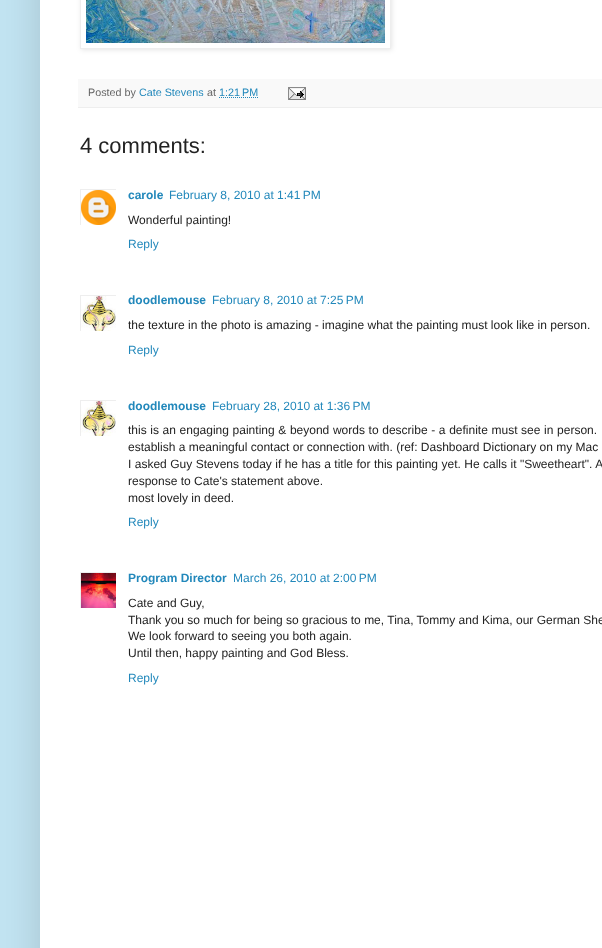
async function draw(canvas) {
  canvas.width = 602
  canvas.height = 948
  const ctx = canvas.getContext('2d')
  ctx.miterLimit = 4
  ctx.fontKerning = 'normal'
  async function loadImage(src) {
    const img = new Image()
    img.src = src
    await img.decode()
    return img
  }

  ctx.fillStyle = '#c2e4f2'
  ctx.fillRect(0, 0, 602, 948)
  ctx.fillStyle = '#00000026'
  ctx.filter = 'blur(20px)'
  ctx.beginPath()
  ctx.rect(40, -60, 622, 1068)
  ctx.fill()
  ctx.filter = 'none'
  ctx.fillStyle = '#fff'
  ctx.fillRect(40, 0, 562, 948)
  ctx.save()
  ctx.beginPath()
  ctx.moveTo(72, 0)
  ctx.lineTo(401, 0)
  ctx.lineTo(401, 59)
  ctx.lineTo(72, 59)
  ctx.closePath()
  ctx.moveTo(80, -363)
  ctx.lineTo(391, -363)
  ctx.lineTo(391, 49)
  ctx.lineTo(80, 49)
  ctx.closePath()
  ctx.clip('evenodd')
  ctx.fillStyle = '#0000001a'
  ctx.filter = 'blur(2.5px)'
  ctx.beginPath()
  ctx.rect(81, -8, 311, 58)
  ctx.fill()
  ctx.filter = 'none'
  ctx.restore()
  ctx.strokeStyle = '#eee'
  ctx.strokeRect(80.5, -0.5, 310, 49)
  ctx.drawImage(await loadImage('image0.png'), 86, 0, 299, 43)
  ctx.fillStyle = '#f9f9f9'
  ctx.fillRect(78, 79, 524, 28)
  ctx.fillStyle = '#eee'
  ctx.fillRect(78, 107, 524, 1)
  ctx.font = '10.75px Liberation Sans'
  ctx.fillStyle = '#666'
  ctx.fillText('Posted by', 88, 96)
  ctx.fillStyle = '#28b'
  ctx.fillText('Cate Stevens', 139, 96)
  ctx.fillStyle = '#666'
  ctx.fillText('at', 207, 96)
  ctx.fillStyle = '#28b'
  ctx.fillText('1:21 PM', 219, 96)
  ctx.beginPath()
  ctx.moveTo(219, 97.5)
  ctx.lineTo(258, 97.5)
  ctx.strokeStyle = '#28b'
  ctx.setLineDash([1, 1])
  ctx.stroke()
  ctx.drawImage(await loadImage('image1.png'), 288, 87, 18, 13)
  ctx.font = '22px Liberation Sans'
  ctx.fillStyle = '#222'
  ctx.fillText('4 comments:', 80, 153)
  ctx.save()
  ctx.beginPath()
  ctx.rect(80, 189, 36, 36)
  ctx.clip()
  ctx.strokeStyle = '#eee'
  ctx.setLineDash([])
  ctx.strokeRect(80.5, 189.5, 36, 36)
  ctx.restore()
  ctx.drawImage(await loadImage('image2.png'), 81, 190, 35, 35)
  ctx.font = 'bold 12px Liberation Sans'
  ctx.fillStyle = '#28b'
  ctx.fillText('carole', 128, 199)
  ctx.font = '12px Liberation Sans'
  ctx.fillText('February 8, 2010 at 1:41 PM', 169, 199)
  ctx.fillStyle = '#222'
  ctx.fillText('Wonderful painting!', 128, 224)
  ctx.fillStyle = '#28b'
  ctx.fillText('Reply', 128, 248)
  ctx.save()
  ctx.beginPath()
  ctx.rect(80, 295, 36, 36)
  ctx.clip()
  ctx.strokeStyle = '#eee'
  ctx.setLineDash([])
  ctx.strokeRect(80.5, 295.5, 37, 37)
  ctx.restore()
  ctx.drawImage(await loadImage('image3.png'), 81, 296, 35, 35)
  ctx.font = 'bold 12px Liberation Sans'
  ctx.fillText('doodlemouse', 128, 304)
  ctx.font = '12px Liberation Sans'
  ctx.fillText('February 8, 2010 at 7:25 PM', 212, 304)
  ctx.fillStyle = '#222'
  ctx.fillText('the texture in the photo is amazing - imagine what the painting must look like in person.', 128, 329)
  ctx.fillStyle = '#28b'
  ctx.fillText('Reply', 128, 354)
  ctx.save()
  ctx.beginPath()
  ctx.rect(80, 400, 36, 36)
  ctx.clip()
  ctx.strokeStyle = '#eee'
  ctx.setLineDash([])
  ctx.strokeRect(80.5, 400.5, 37, 37)
  ctx.restore()
  ctx.drawImage(await loadImage('image3.png'), 81, 401, 35, 35)
  ctx.font = 'bold 12px Liberation Sans'
  ctx.fillText('doodlemouse', 128, 410)
  ctx.font = '12px Liberation Sans'
  ctx.fillText('February 28, 2010 at 1:36 PM', 212, 410)
  ctx.wordSpacing = '0.3px'
  ctx.fillStyle = '#222'
  ctx.fillText('this is an engaging painting & beyond words to describe - a definite must see in person.', 128, 434)
  ctx.wordSpacing = '0px'
  ctx.fillText('establish a meaningful contact or connection with. (ref: Dashboard Dictionary on my Mac', 128, 451)
  ctx.wordSpacing = '0.1px'
  ctx.fillText('I asked Guy Stevens today if he has a title for this painting yet. He calls it "Sweetheart". A', 128, 468)
  ctx.wordSpacing = '0px'
  ctx.fillText('response to Cate\'s statement above.', 128, 485)
  ctx.fillText('most lovely in deed.', 128, 502)
  ctx.fillStyle = '#28b'
  ctx.fillText('Reply', 128, 526)
  ctx.save()
  ctx.beginPath()
  ctx.rect(80, 572, 36, 36)
  ctx.clip()
  ctx.strokeStyle = '#eee'
  ctx.setLineDash([])
  ctx.strokeRect(80.5, 572.5, 37, 37)
  ctx.restore()
  ctx.drawImage(await loadImage('image4.png'), 81, 573, 35, 35)
  ctx.font = 'bold 12px Liberation Sans'
  ctx.fillText('Program Director', 128, 582)
  ctx.font = '12px Liberation Sans'
  ctx.fillText('March 26, 2010 at 2:00 PM', 233, 582)
  ctx.fillStyle = '#222'
  ctx.fillText('Cate and Guy,', 128, 607)
  ctx.fillText('Thank you so much for being so gracious to me, Tina, Tommy and Kima, our German She', 128, 624)
  ctx.fillText('We look forward to seeing you both again.', 128, 640)
  ctx.fillText('Until then, happy painting and God Bless.', 128, 657)
  ctx.fillStyle = '#28b'
  ctx.fillText('Reply', 128, 682)
}

draw(document.querySelector('canvas'))
